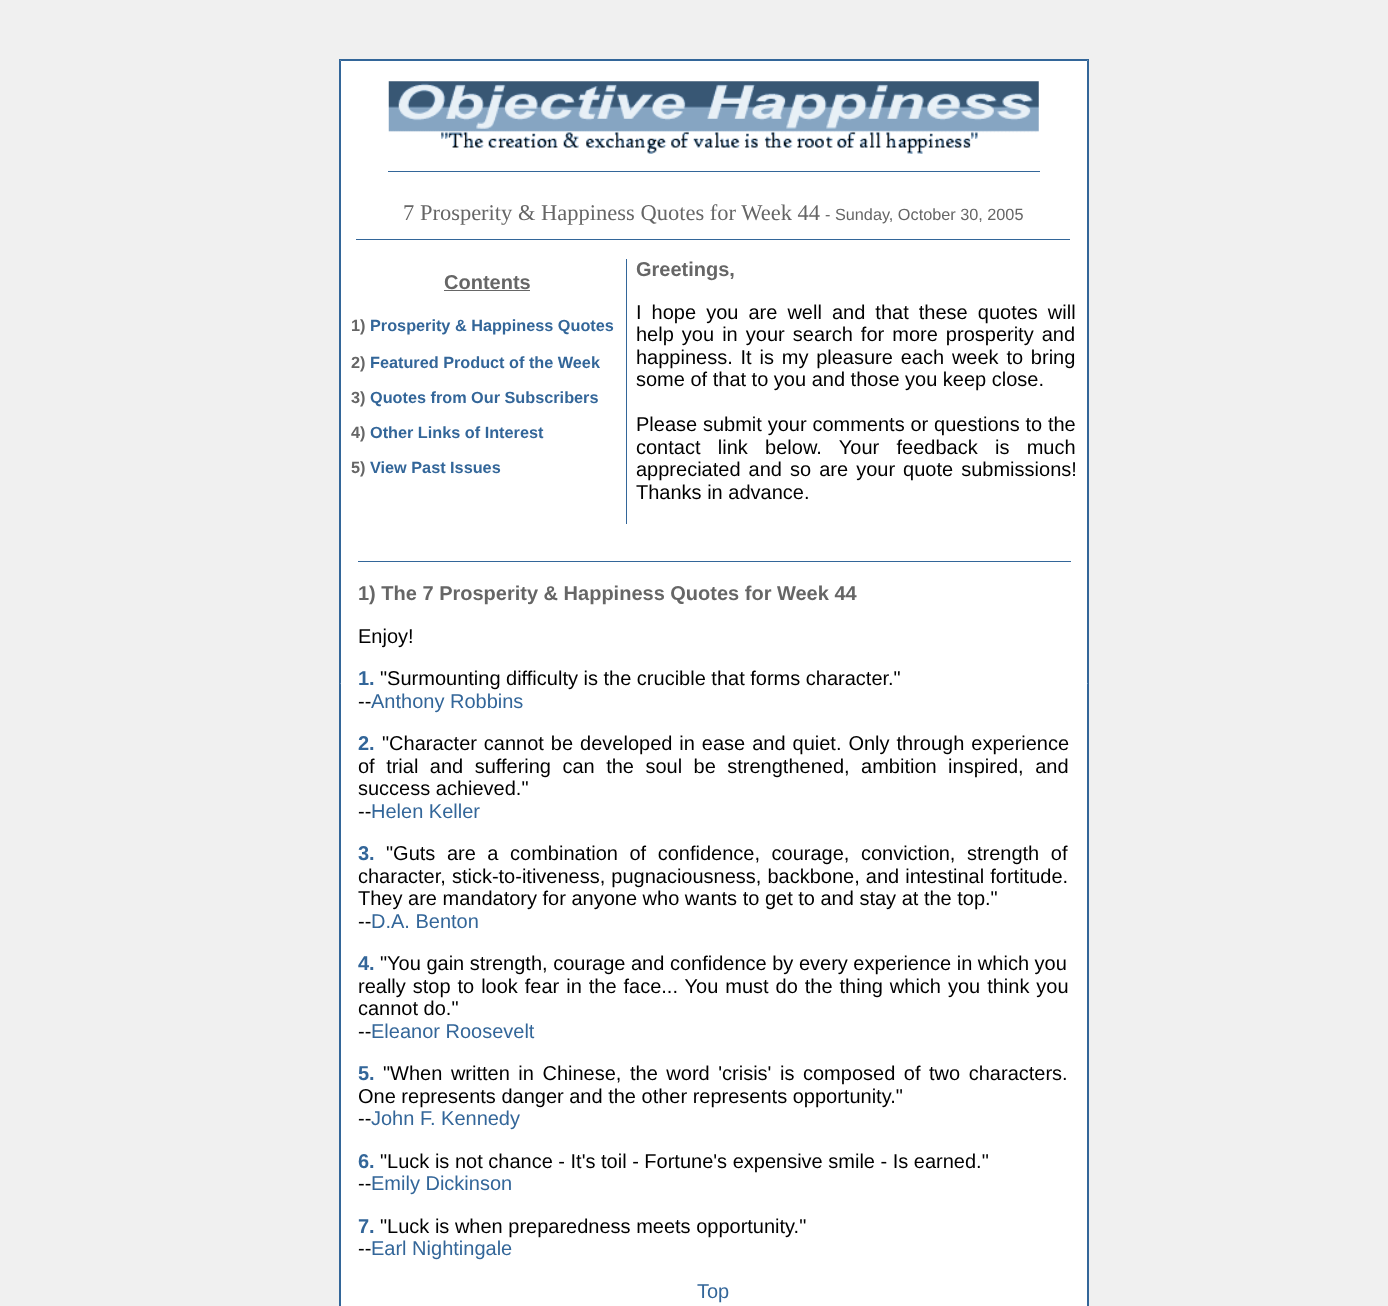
async function draw(canvas) {
  canvas.width = 1388
  canvas.height = 1306
  const ctx = canvas.getContext('2d')
  ctx.miterLimit = 4
  ctx.fontKerning = 'normal'
  async function loadImage(src) {
    const img = new Image()
    img.src = src
    await img.decode()
    return img
  }

  ctx.fillStyle = '#f0f0f0'
  ctx.fillRect(0, 0, 1388, 1306)
  ctx.strokeStyle = '#369'
  ctx.strokeRect(339.5, 59.5, 749, 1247)
  ctx.fillStyle = '#fff'
  ctx.beginPath()
  ctx.rect(340.5, 60.5, 747, 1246)
  ctx.fill()
  ctx.stroke()
  ctx.drawImage(await loadImage('image0.png'), 388, 81, 651, 73)
  ctx.fillStyle = '#369'
  ctx.fillRect(388, 171, 652, 1)
  ctx.font = '22.5px Liberation Serif'
  ctx.fillStyle = '#666'
  ctx.fillText('7 Prosperity & Happiness Quotes for Week 44', 403, 220)
  ctx.font = '16.25px Liberation Sans'
  ctx.fillText('- Sunday, October 30, 2005', 825, 220)
  ctx.fillStyle = '#369'
  ctx.fillRect(356, 239, 714, 1)
  ctx.font = 'bold 20px Liberation Sans'
  ctx.fillStyle = '#666'
  ctx.fillText('Contents', 444, 289)
  ctx.fillRect(444, 290, 86, 1)
  ctx.font = 'bold 16.25px Liberation Sans'
  ctx.fillText('1)', 351, 331)
  ctx.fillStyle = '#369'
  ctx.fillText('Prosperity & Happiness Quotes', 370, 331)
  ctx.fillStyle = '#666'
  ctx.fillText('2)', 351, 368)
  ctx.fillStyle = '#369'
  ctx.fillText('Featured Product of the Week', 370, 368)
  ctx.fillStyle = '#666'
  ctx.fillText('3)', 351, 403)
  ctx.fillStyle = '#369'
  ctx.fillText('Quotes from Our Subscribers', 370, 403)
  ctx.fillStyle = '#666'
  ctx.fillText('4)', 351, 438)
  ctx.fillStyle = '#369'
  ctx.fillText('Other Links of Interest', 370, 438)
  ctx.fillStyle = '#666'
  ctx.fillText('5)', 351, 473)
  ctx.fillStyle = '#369'
  ctx.fillText('View Past Issues', 370, 473)
  ctx.fillRect(626, 259, 1, 265)
  ctx.font = 'bold 20px Liberation Sans'
  ctx.fillStyle = '#666'
  ctx.fillText('Greetings,', 636, 276)
  ctx.wordSpacing = '4.5px'
  ctx.font = '20px Liberation Sans'
  ctx.fillStyle = '#000'
  ctx.fillText('I hope you are well and that these quotes will', 636, 319)
  ctx.wordSpacing = '2.5px'
  ctx.fillText('help you in your search for more prosperity and', 636, 341)
  ctx.wordSpacing = '2.25px'
  ctx.fillText('happiness. It is my pleasure each week to bring', 636, 364)
  ctx.wordSpacing = '0px'
  ctx.fillText('some of that to you and those you keep close.', 636, 386)
  ctx.wordSpacing = '0.25px'
  ctx.fillText('Please submit your comments or questions to the', 636, 431)
  ctx.wordSpacing = '11.75px'
  ctx.fillText('contact link below. Your feedback is much', 636, 454)
  ctx.wordSpacing = '2.5px'
  ctx.fillText('appreciated and so are your quote submissions!', 636, 476)
  ctx.wordSpacing = '0px'
  ctx.fillText('Thanks in advance.', 636, 499)
  ctx.fillStyle = '#369'
  ctx.fillRect(358, 561, 713, 1)
  ctx.font = 'bold 20px Liberation Sans'
  ctx.fillStyle = '#666'
  ctx.fillText('1) The 7 Prosperity & Happiness Quotes for Week 44', 358, 600)
  ctx.font = '20px Liberation Sans'
  ctx.fillStyle = '#000'
  ctx.fillText('Enjoy!', 358, 643)
  ctx.font = 'bold 20px Liberation Sans'
  ctx.fillStyle = '#369'
  ctx.fillText('1.', 358, 685)
  ctx.font = '20px Liberation Sans'
  ctx.fillStyle = '#000'
  ctx.fillText('"Surmounting difficulty is the crucible that forms character."', 380, 685)
  ctx.fillText('--', 358, 708)
  ctx.fillStyle = '#369'
  ctx.fillText('Anthony Robbins', 371, 708)
  ctx.font = 'bold 20px Liberation Sans'
  ctx.fillText('2.', 358, 750)
  ctx.wordSpacing = '1.4px'
  ctx.font = '20px Liberation Sans'
  ctx.fillStyle = '#000'
  ctx.fillText('"Character cannot be developed in ease and quiet. Only through experience', 382, 750)
  ctx.wordSpacing = '5.9px'
  ctx.fillText('of trial and suffering can the soul be strengthened, ambition inspired, and', 358, 773)
  ctx.wordSpacing = '0px'
  ctx.fillText('success achieved."', 358, 795)
  ctx.fillText('--', 358, 818)
  ctx.fillStyle = '#369'
  ctx.fillText('Helen Keller', 371, 818)
  ctx.font = 'bold 20px Liberation Sans'
  ctx.fillText('3.', 358, 860)
  ctx.wordSpacing = '6px'
  ctx.font = '20px Liberation Sans'
  ctx.fillStyle = '#000'
  ctx.fillText('"Guts are a combination of confidence, courage, conviction, strength of', 386, 860)
  ctx.wordSpacing = '0.5px'
  ctx.fillText('character, stick-to-itiveness, pugnaciousness, backbone, and intestinal fortitude.', 358, 883)
  ctx.wordSpacing = '0px'
  ctx.fillText('They are mandatory for anyone who wants to get to and stay at the top."', 358, 905)
  ctx.fillText('--', 358, 928)
  ctx.fillStyle = '#369'
  ctx.fillText('D.A. Benton', 371, 928)
  ctx.font = 'bold 20px Liberation Sans'
  ctx.fillText('4.', 358, 970)
  ctx.font = '20px Liberation Sans'
  ctx.fillStyle = '#000'
  ctx.fillText('"You gain strength, courage and confidence by every experience in which you', 380, 970)
  ctx.wordSpacing = '1.4px'
  ctx.fillText('really stop to look fear in the face... You must do the thing which you think you', 358, 993)
  ctx.wordSpacing = '0px'
  ctx.fillText('cannot do."', 358, 1015)
  ctx.fillText('--', 358, 1038)
  ctx.fillStyle = '#369'
  ctx.fillText('Eleanor Roosevelt', 371, 1038)
  ctx.font = 'bold 20px Liberation Sans'
  ctx.fillText('5.', 358, 1080)
  ctx.wordSpacing = '3px'
  ctx.font = '20px Liberation Sans'
  ctx.fillStyle = '#000'
  ctx.fillText('"When written in Chinese, the word \'crisis\' is composed of two characters.', 383, 1080)
  ctx.wordSpacing = '0px'
  ctx.fillText('One represents danger and the other represents opportunity."', 358, 1103)
  ctx.fillText('--', 358, 1125)
  ctx.fillStyle = '#369'
  ctx.fillText('John F. Kennedy', 371, 1125)
  ctx.font = 'bold 20px Liberation Sans'
  ctx.fillText('6.', 358, 1168)
  ctx.font = '20px Liberation Sans'
  ctx.fillStyle = '#000'
  ctx.fillText('"Luck is not chance - It\'s toil - Fortune\'s expensive smile - Is earned."', 380, 1168)
  ctx.fillText('--', 358, 1190)
  ctx.fillStyle = '#369'
  ctx.fillText('Emily Dickinson', 371, 1190)
  ctx.font = 'bold 20px Liberation Sans'
  ctx.fillText('7.', 358, 1233)
  ctx.font = '20px Liberation Sans'
  ctx.fillStyle = '#000'
  ctx.fillText('"Luck is when preparedness meets opportunity."', 380, 1233)
  ctx.fillText('--', 358, 1255)
  ctx.fillStyle = '#369'
  ctx.fillText('Earl Nightingale', 371, 1255)
  ctx.fillText('Top', 697, 1298)
}

draw(document.querySelector('canvas'))
